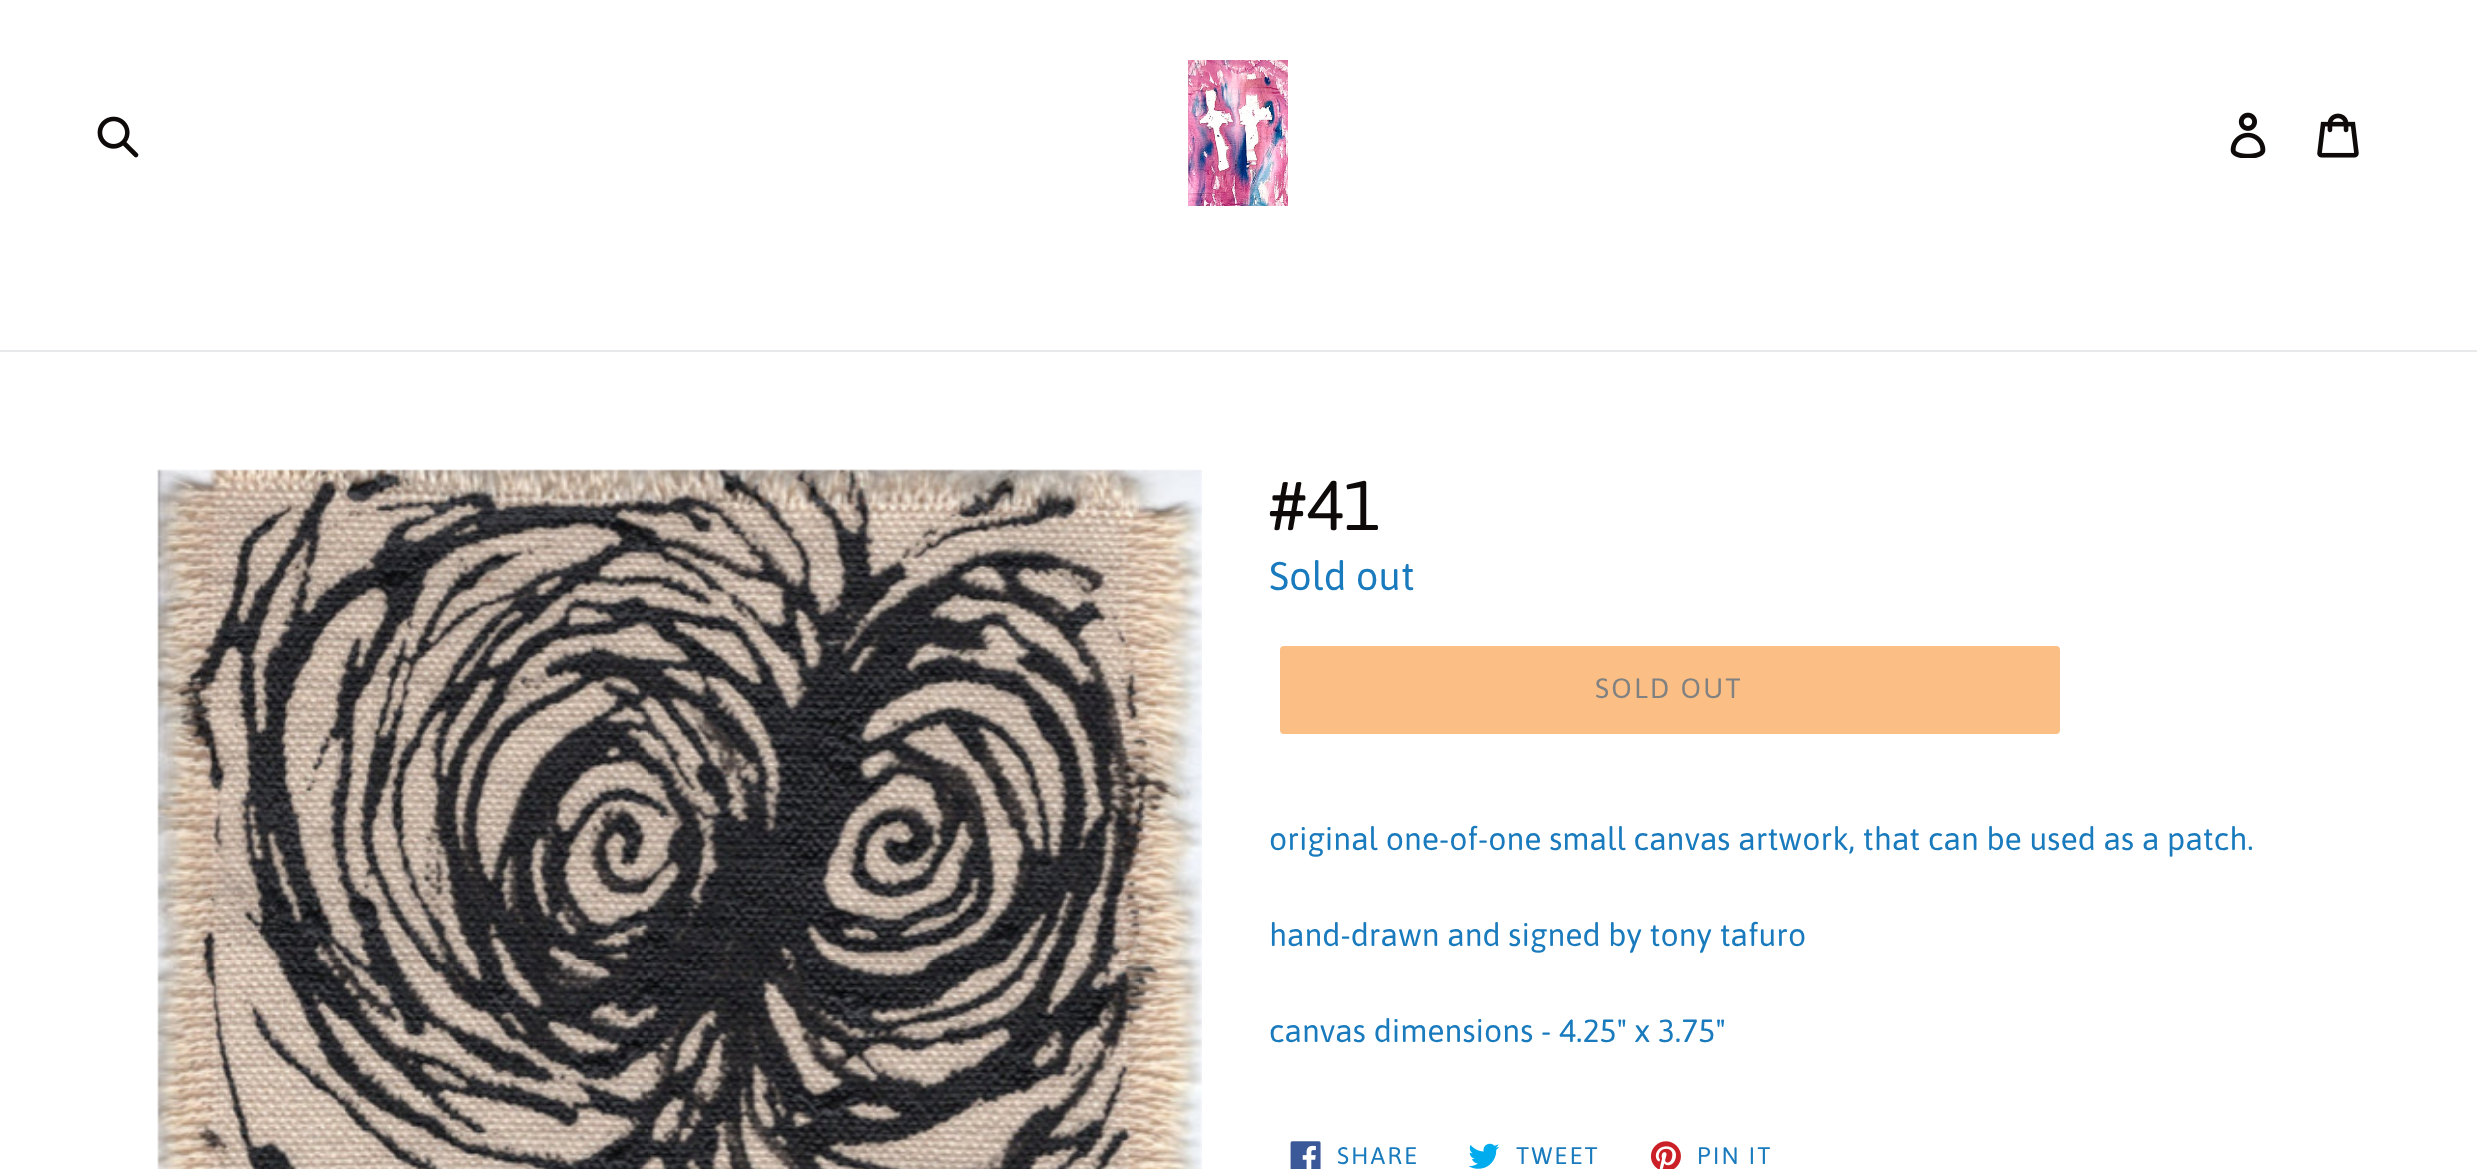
async function draw(canvas) {
  canvas.width = 2477
  canvas.height = 1169
  const ctx = canvas.getContext('2d')
  ctx.miterLimit = 4
  ctx.fontKerning = 'normal'
  async function loadImage(src) {
    const img = new Image()
    img.src = src
    await img.decode()
    return img
  }

  ctx.fillStyle = '#fff'
  ctx.fillRect(0, 0, 2477, 1169)
  ctx.drawImage(await loadImage('image0.png'), 97, 116, 42, 42)
  ctx.drawImage(await loadImage('image1.png'), 1188, 60, 100, 146)
  ctx.drawImage(await loadImage('image2.png'), 2230, 112, 36, 46)
  ctx.drawImage(await loadImage('image3.png'), 2317, 113, 42, 45)
  ctx.fillStyle = '#e8e9eb'
  ctx.fillRect(0, 350, 2477, 2)
  ctx.drawImage(await loadImage('image4.png'), 157, 469, 1045, 700)
  ctx.font = '70px Asap'
  ctx.fillStyle = '#0f0a0a'
  ctx.fillText('#41', 1269, 530)
  ctx.font = '40px Asap'
  ctx.fillStyle = '#197bbd'
  ctx.fillText('Sold out', 1269, 590)
  ctx.fillStyle = '#fbbf85'
  ctx.beginPath()
  ctx.roundRect(1280, 646, 780, 88, 4)
  ctx.fill()
  ctx.letterSpacing = '2.25px'
  ctx.font = '28px Asap'
  ctx.fillStyle = '#818181'
  ctx.fillText('SOLD OUT', 1595, 698)
  ctx.letterSpacing = '0px'
  ctx.font = '32px Asap'
  ctx.fillStyle = '#197bbd'
  ctx.fillText('original one-of-one small canvas artwork, that can be used as a patch.', 1269, 850)
  ctx.fillText('hand-drawn and signed by tony tafuro', 1269, 946)
  ctx.fillText('canvas dimensions - 4.25" x 3.75"', 1269, 1042)
  ctx.drawImage(await loadImage('image5.png'), 1290, 1141, 31, 28)
  ctx.letterSpacing = '2px'
  ctx.font = '24px Asap'
  ctx.fillText('SHARE', 1337, 1164)
  ctx.drawImage(await loadImage('image6.png'), 1468, 1143, 32, 26)
  ctx.fillText('TWEET', 1516, 1164)
  ctx.drawImage(await loadImage('image7.png'), 1650, 1141, 31, 28)
  ctx.fillText('PIN IT', 1697, 1164)
}

draw(document.querySelector('canvas'))
